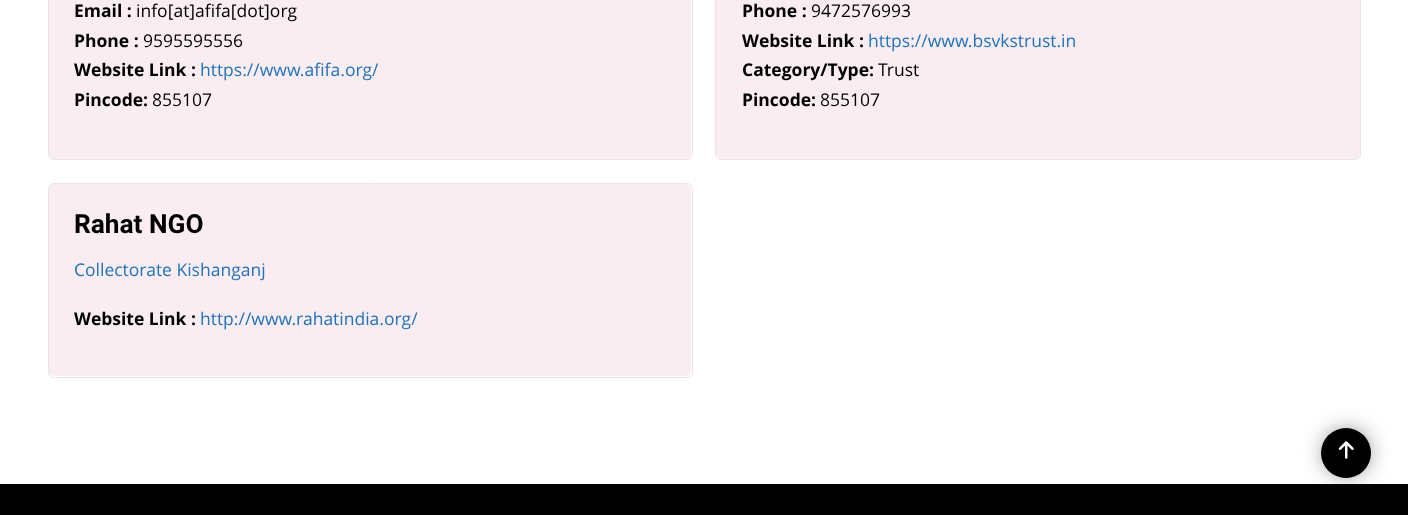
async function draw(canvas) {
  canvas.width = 1408
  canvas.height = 515
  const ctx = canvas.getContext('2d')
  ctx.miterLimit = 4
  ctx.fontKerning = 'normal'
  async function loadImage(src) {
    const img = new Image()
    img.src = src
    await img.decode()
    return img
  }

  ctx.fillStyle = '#fff'
  ctx.fillRect(0, 0, 1408, 515)
  ctx.beginPath()
  ctx.roundRect(48.5, -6.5, 644, 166, 5.5)
  ctx.strokeStyle = '#e6e6e6'
  ctx.stroke()
  ctx.fillStyle = '#faedf1'
  ctx.beginPath()
  ctx.roundRect(49, -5, 642, 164, 5)
  ctx.fill()
  ctx.font = 'bold 17.5px Open Sans'
  ctx.fillStyle = '#000'
  ctx.fillText('Email :', 74, 17)
  ctx.font = '17.5px Open Sans'
  ctx.fillText('info[at]afifa[dot]org', 136, 17)
  ctx.font = 'bold 17.5px Open Sans'
  ctx.fillText('Phone :', 74, 47)
  ctx.font = '17.5px Open Sans'
  ctx.fillText('9595595556', 143, 47)
  ctx.font = 'bold 17.5px Open Sans'
  ctx.fillText('Website Link :', 74, 76)
  ctx.font = '17.5px Open Sans'
  ctx.fillStyle = '#2273b9'
  ctx.fillText('https://www.afifa.org/', 200, 76)
  ctx.font = 'bold 17.5px Open Sans'
  ctx.fillStyle = '#000'
  ctx.fillText('Pincode:', 74, 106)
  ctx.font = '17.5px Open Sans'
  ctx.fillText('855107', 152, 106)
  ctx.beginPath()
  ctx.roundRect(715.5, -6.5, 645, 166, 5.5)
  ctx.stroke()
  ctx.fillStyle = '#faedf1'
  ctx.beginPath()
  ctx.roundRect(716, -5, 644, 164, 5)
  ctx.fill()
  ctx.font = 'bold 17.5px Open Sans'
  ctx.fillStyle = '#000'
  ctx.fillText('Phone :', 742, 17)
  ctx.font = '17.5px Open Sans'
  ctx.fillText('9472576993', 811, 17)
  ctx.font = 'bold 17.5px Open Sans'
  ctx.fillText('Website Link :', 742, 47)
  ctx.font = '17.5px Open Sans'
  ctx.fillStyle = '#2273b9'
  ctx.fillText('https://www.bsvkstrust.in', 868, 47)
  ctx.font = 'bold 17.5px Open Sans'
  ctx.fillStyle = '#000'
  ctx.fillText('Category/Type:', 742, 76)
  ctx.font = '17.5px Open Sans'
  ctx.fillText('Trust', 878, 76)
  ctx.font = 'bold 17.5px Open Sans'
  ctx.fillText('Pincode:', 742, 106)
  ctx.font = '17.5px Open Sans'
  ctx.fillText('855107', 820, 106)
  ctx.beginPath()
  ctx.roundRect(48.5, 183.5, 644, 194, 5.5)
  ctx.stroke()
  ctx.fillStyle = '#faedf1'
  ctx.beginPath()
  ctx.roundRect(49, 184, 642, 192, 5)
  ctx.fill()
  ctx.font = 'bold 26.25px Roboto'
  ctx.fillStyle = '#000'
  ctx.fillText('Rahat NGO', 74, 233)
  ctx.font = '17.5px Open Sans'
  ctx.fillStyle = '#2273b9'
  ctx.fillText('Collectorate Kishanganj', 74, 276)
  ctx.font = 'bold 17.5px Open Sans'
  ctx.fillStyle = '#000'
  ctx.fillText('Website Link :', 74, 325)
  ctx.font = '17.5px Open Sans'
  ctx.fillStyle = '#2273b9'
  ctx.fillText('http://www.rahatindia.org/', 200, 325)
  ctx.fillStyle = '#000'
  ctx.fillRect(0, 484, 1408, 31)
  ctx.fillStyle = '#3c3c3c'
  ctx.filter = 'blur(12px)'
  ctx.beginPath()
  ctx.roundRect(1328, 434, 37, 37, 18.5)
  ctx.fill()
  ctx.filter = 'none'
  ctx.fillStyle = '#000'
  ctx.beginPath()
  ctx.arc(1346, 453, 25, 0, 2 * Math.PI)
  ctx.fill()
  ctx.drawImage(await loadImage('image0.png'), 1338, 441, 16, 18)
}

draw(document.querySelector('canvas'))
